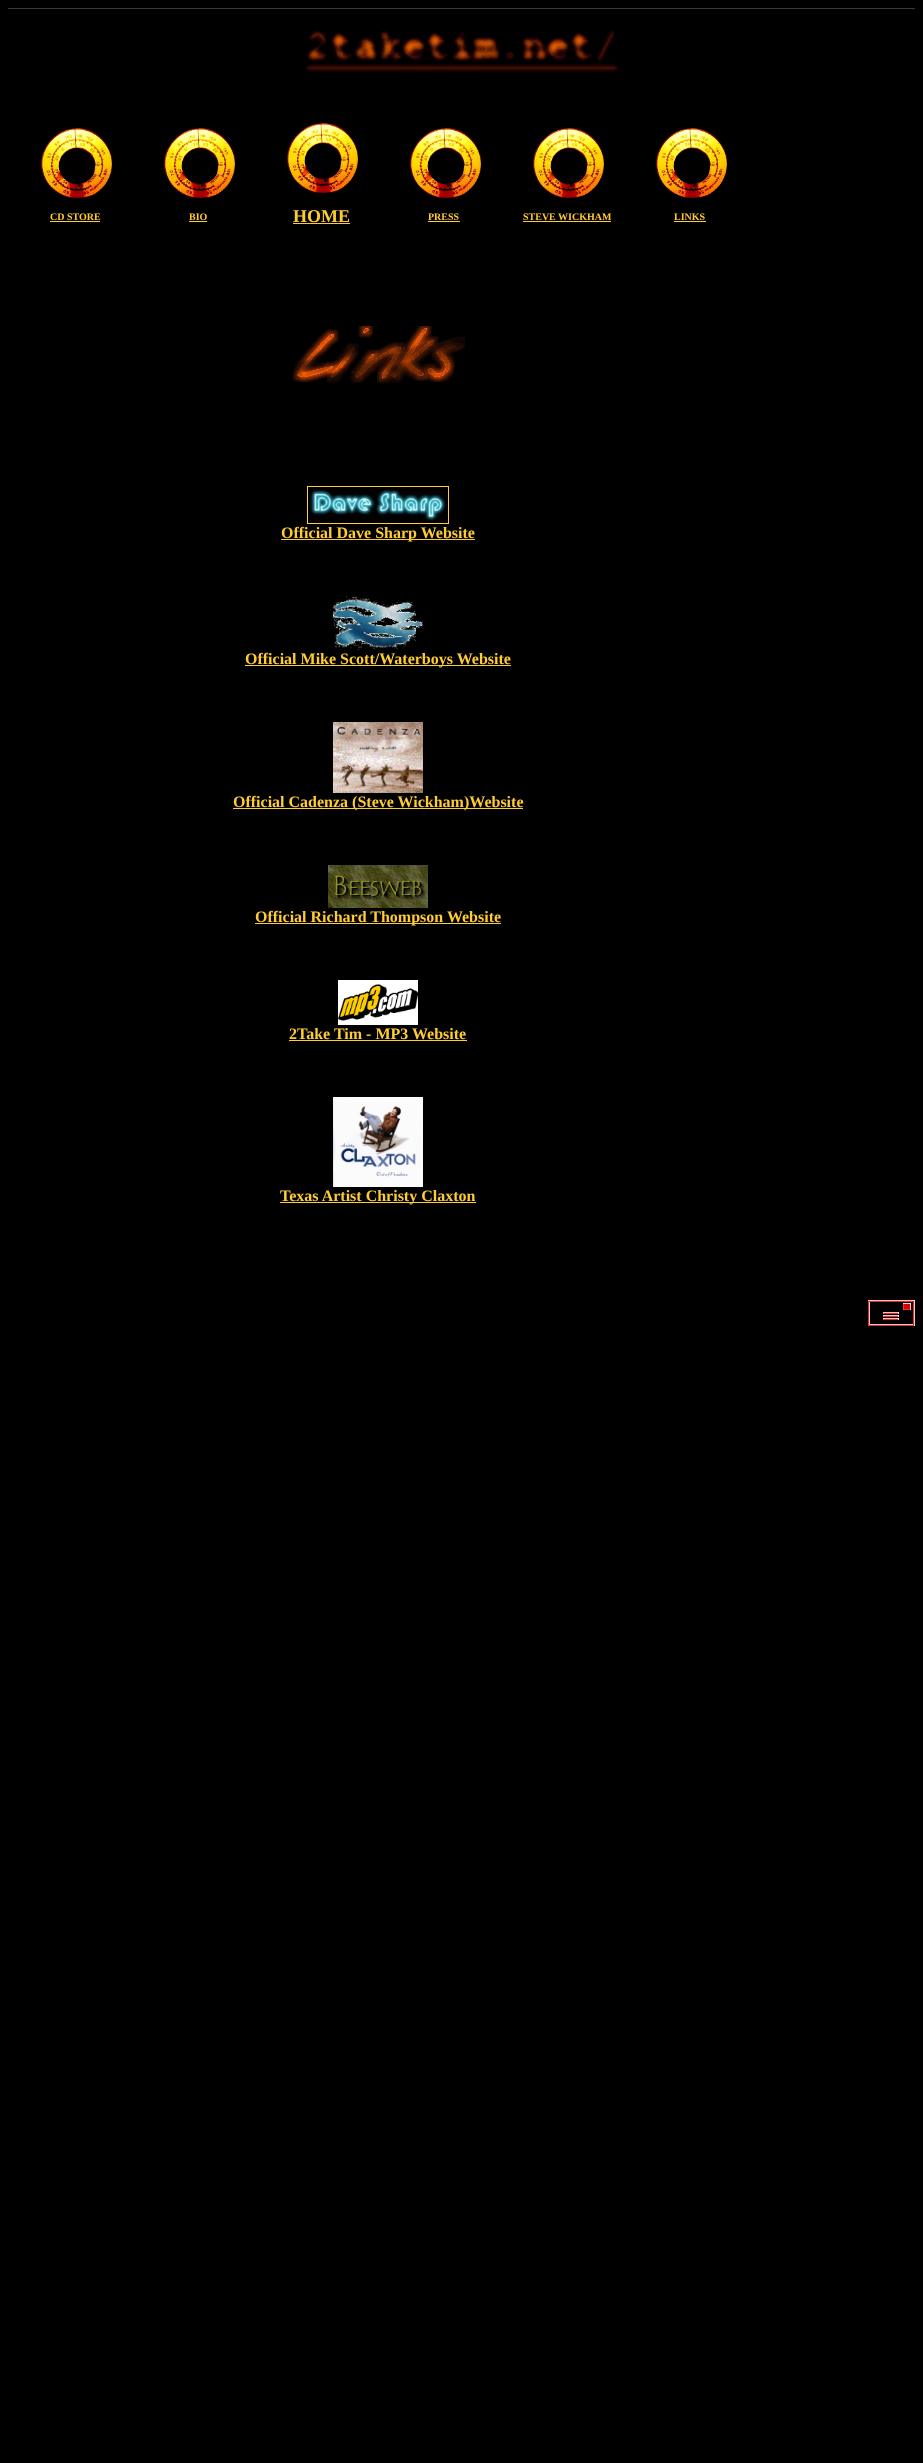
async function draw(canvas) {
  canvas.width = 923
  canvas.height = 2463
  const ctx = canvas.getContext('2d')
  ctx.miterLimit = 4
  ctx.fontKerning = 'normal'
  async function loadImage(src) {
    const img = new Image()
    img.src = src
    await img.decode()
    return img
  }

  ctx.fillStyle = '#000'
  ctx.fillRect(0, 0, 923, 2463)
  ctx.fillStyle = '#393939'
  ctx.fillRect(8, 8, 907, 1)
  ctx.drawImage(await loadImage('image0.png'), 306, 30, 313, 43)
  ctx.drawImage(await loadImage('image1.png'), 41, 128, 72, 71)
  ctx.font = 'bold 10px Liberation Serif'
  ctx.fillStyle = '#fc3'
  ctx.fillText('CD STORE', 50, 220)
  ctx.fillRect(50, 221, 50, 1)
  ctx.drawImage(await loadImage('image2.png'), 164, 128, 72, 71)
  ctx.fillText('BIO', 189, 220)
  ctx.fillRect(189, 221, 18, 1)
  ctx.drawImage(await loadImage('image1.png'), 287, 123, 72, 71)
  ctx.font = 'bold 18px Liberation Serif'
  ctx.fillText('HOME', 293, 222)
  ctx.fillRect(293, 223, 57, 1)
  ctx.drawImage(await loadImage('image3.png'), 410, 128, 72, 71)
  ctx.font = 'bold 10px Liberation Serif'
  ctx.fillText('PRESS', 428, 220)
  ctx.fillRect(428, 221, 32, 1)
  ctx.drawImage(await loadImage('image3.png'), 533, 128, 72, 71)
  ctx.fillText('STEVE WICKHAM', 523, 220)
  ctx.fillRect(523, 221, 88, 1)
  ctx.drawImage(await loadImage('image3.png'), 656, 128, 72, 71)
  ctx.fillText('LINKS', 674, 220)
  ctx.fillRect(674, 221, 32, 1)
  ctx.drawImage(await loadImage('image4.png'), 292, 326, 173, 58)
  ctx.strokeStyle = '#fc3'
  ctx.strokeRect(307.5, 486.5, 141, 37)
  ctx.drawImage(await loadImage('image5.png'), 308, 487, 139, 34)
  ctx.fillRect(281, 539, 194, 1)
  ctx.font = 'bold 16px Liberation Serif'
  ctx.fillText('Official Dave Sharp Website', 281, 538)
  ctx.drawImage(await loadImage('image6.png'), 333, 596, 90, 54)
  ctx.fillRect(245, 665, 266, 1)
  ctx.fillText('Official Mike Scott/Waterboys Website', 245, 664)
  ctx.drawImage(await loadImage('image7.png'), 333, 722, 90, 71)
  ctx.fillRect(233, 808, 290, 1)
  ctx.fillText('Official Cadenza (Steve Wickham)Website', 233, 807)
  ctx.drawImage(await loadImage('image8.png'), 328, 865, 100, 43)
  ctx.fillRect(255, 923, 246, 1)
  ctx.fillText('Official Richard Thompson Website', 255, 922)
  ctx.drawImage(await loadImage('image9.png'), 338, 980, 80, 45)
  ctx.fillText('2Take Tim - MP3 Website', 289, 1039)
  ctx.fillRect(289, 1040, 178, 1)
  ctx.drawImage(await loadImage('image10.png'), 333, 1097, 90, 90)
  ctx.fillRect(280, 1202, 196, 1)
  ctx.fillText('Texas Artist Christy Claxton', 280, 1201)
  ctx.drawImage(await loadImage('image11.png'), 868, 1300, 47, 26)
}

draw(document.querySelector('canvas'))
